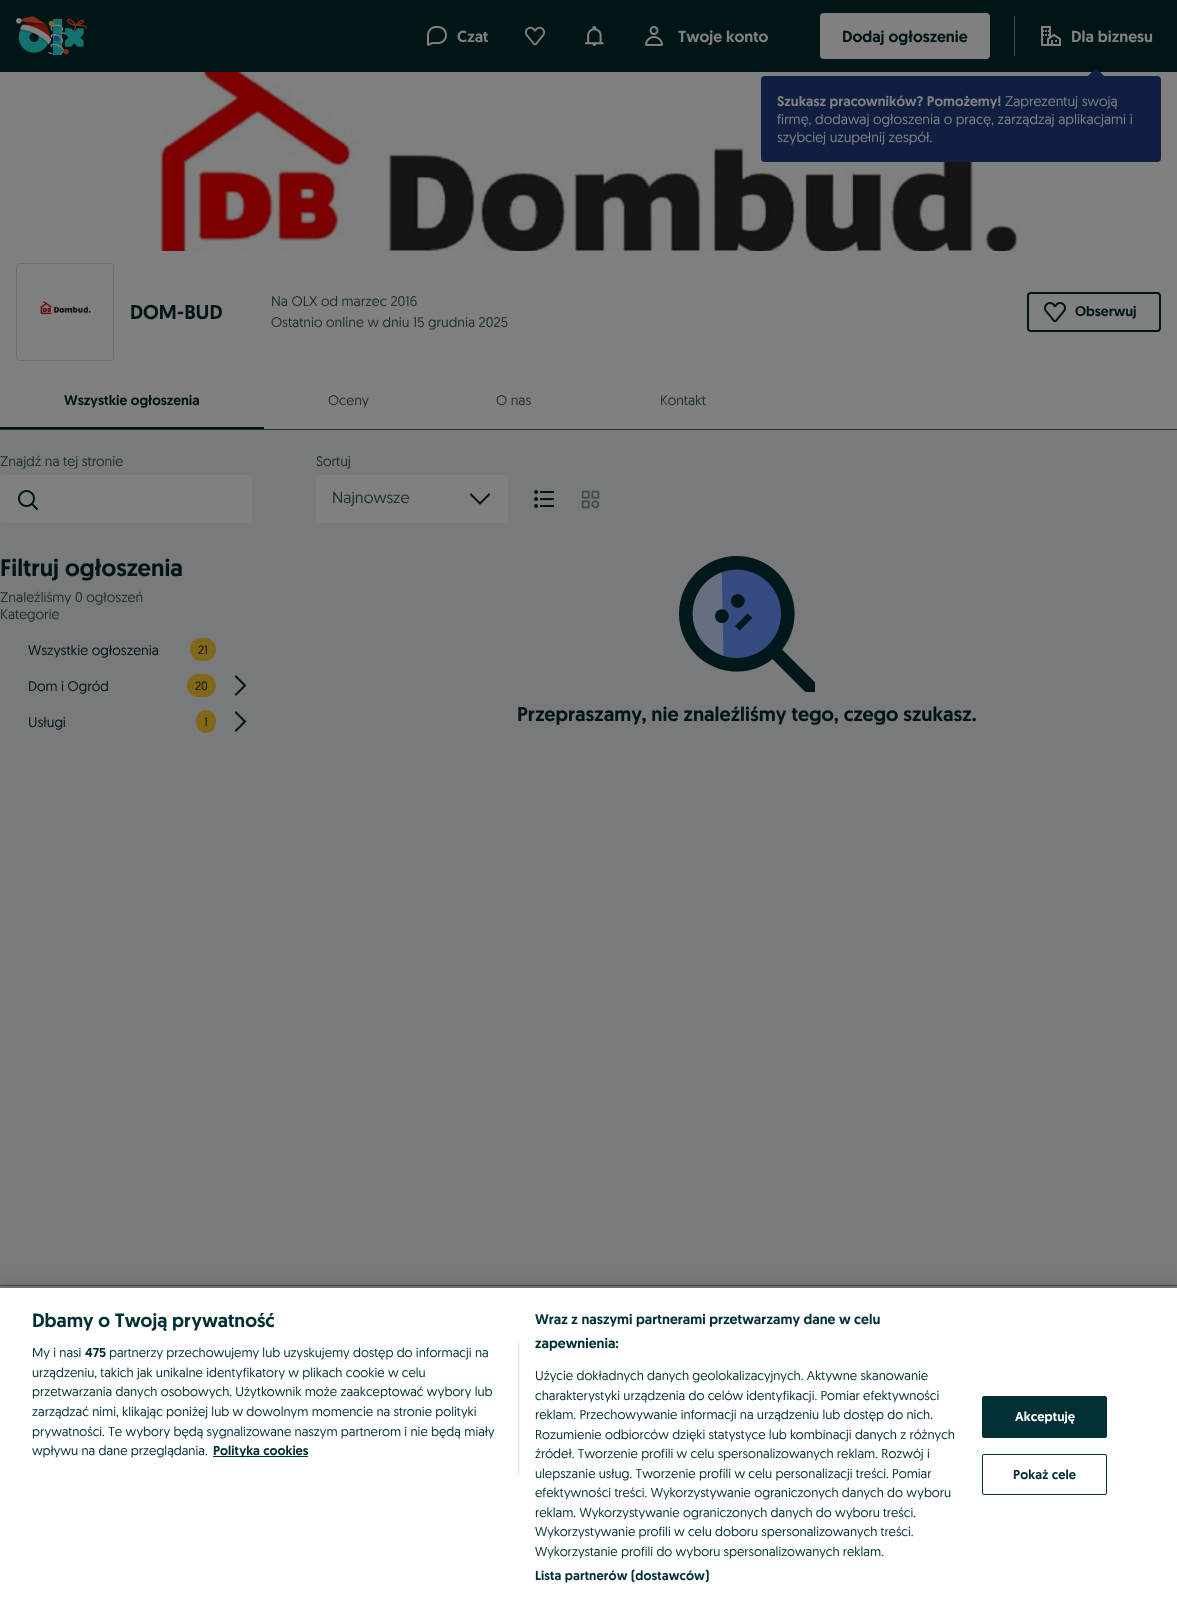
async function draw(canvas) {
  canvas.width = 1177
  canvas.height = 1606
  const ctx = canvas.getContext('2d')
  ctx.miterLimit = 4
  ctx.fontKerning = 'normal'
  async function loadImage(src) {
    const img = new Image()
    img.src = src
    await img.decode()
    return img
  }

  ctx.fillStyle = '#797a7b'
  ctx.fillRect(0, 0, 1177, 1606)
  ctx.fillStyle = '#011416'
  ctx.fillRect(0, 0, 1177, 72)
  ctx.drawImage(await loadImage('image0.png'), 16, 16, 71, 39)
  ctx.drawImage(await loadImage('image1.png'), 427, 26, 20, 20)
  ctx.font = '500 16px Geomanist'
  ctx.fillStyle = '#808080'
  ctx.fillText('Czat', 457, 42)
  ctx.drawImage(await loadImage('image2.png'), 524, 26, 22, 20)
  ctx.drawImage(await loadImage('image3.png'), 585, 26, 19, 20)
  ctx.drawImage(await loadImage('image4.png'), 645, 26, 18, 20)
  ctx.fillText('Twoje konto', 678, 42)
  ctx.fillStyle = '#404c4d'
  ctx.fillRect(1014, 16, 1, 40)
  ctx.drawImage(await loadImage('image5.png'), 1041, 26, 20, 20)
  ctx.fillStyle = '#808080'
  ctx.fillText('Dla biznesu', 1071, 42)
  ctx.fillRect(0, 72, 1177, 357)
  ctx.drawImage(await loadImage('image6.png'), 159, 72, 862, 179)
  ctx.fillStyle = '#0f1e41'
  ctx.beginPath()
  ctx.roundRect(761, 76, 400, 86, 4)
  ctx.fill()
  ctx.beginPath()
  ctx.moveTo(1104, 76)
  ctx.lineTo(1088, 76)
  ctx.lineTo(1096, 68)
  ctx.closePath()
  ctx.fill()
  ctx.font = '500 14px Geomanist'
  ctx.fillStyle = '#808080'
  ctx.fillText('Szukasz pracowników? Pomożemy!', 777, 106)
  ctx.font = '14px Geomanist'
  ctx.fillText('Zaprezentuj swoją', 1005, 106)
  ctx.fillText('firmę, dodawaj ogłoszenia o pracę, zarządzaj aplikacjami i', 777, 124)
  ctx.fillText('szybciej uzupełnij zespół.', 777, 142)
  ctx.beginPath()
  ctx.roundRect(820, 13, 170, 46, 4)
  ctx.fill()
  ctx.font = '500 16px Geomanist'
  ctx.fillStyle = '#011416'
  ctx.fillText('Dodaj ogłoszenie', 842, 42)
  ctx.beginPath()
  ctx.roundRect(16.5, 263.5, 97, 97, 3.5)
  ctx.strokeStyle = '#6c7070'
  ctx.stroke()
  ctx.drawImage(await loadImage('image7.png'), 40, 298, 51, 20)
  ctx.font = '500 20px Geomanist'
  ctx.fillText('DOM-BUD', 130, 319)
  ctx.font = '14px Geomanist'
  ctx.fillStyle = '#203234'
  ctx.fillText('Na OLX od marzec 2016', 271, 306)
  ctx.fillText('Ostatnio online w dniu 15 grudnia 2025', 271, 327)
  ctx.beginPath()
  ctx.roundRect(1028, 293, 132, 38, 3)
  ctx.strokeStyle = '#011416'
  ctx.lineWidth = 2
  ctx.stroke()
  ctx.drawImage(await loadImage('image8.png'), 1044, 302, 22, 20)
  ctx.font = '500 14px Geomanist'
  ctx.fillStyle = '#011416'
  ctx.fillText('Obserwuj', 1075, 316)
  ctx.fillStyle = '#203234'
  ctx.fillRect(0, 429, 1177, 1)
  ctx.fillStyle = '#011416'
  ctx.fillRect(0, 427, 264, 2)
  ctx.fillText('Wszystkie ogłoszenia', 64, 405)
  ctx.font = '14px Geomanist'
  ctx.fillStyle = '#203234'
  ctx.fillText('Oceny', 328, 405)
  ctx.fillText('O nas', 496, 405)
  ctx.fillText('Kontakt', 660, 405)
  ctx.fillText('Znajdź na tej stronie', 0, 466)
  ctx.fillStyle = '#808080'
  ctx.beginPath()
  ctx.roundRect(0, 475, 252, 48, 4)
  ctx.fill()
  ctx.drawImage(await loadImage('image9.png'), 18, 490, 20, 20)
  ctx.font = '500 24px Geomanist'
  ctx.fillStyle = '#011416'
  ctx.fillText('Filtruj ogłoszenia', 0, 576)
  ctx.font = '14px Geomanist'
  ctx.fillStyle = '#203234'
  ctx.fillText('Znaleźliśmy 0 ogłoszeń', 0, 602)
  ctx.fillText('Kategorie', 0, 619)
  ctx.fillStyle = '#011416'
  ctx.fillText('Wszystkie ogłoszenia', 28, 655)
  ctx.fillStyle = '#806719'
  ctx.beginPath()
  ctx.roundRect(190, 638, 26, 23, 11.5)
  ctx.fill()
  ctx.font = '12px Geomanist'
  ctx.fillStyle = '#011416'
  ctx.fillText('21', 198, 654)
  ctx.font = '14px Geomanist'
  ctx.fillText('Dom i Ogród', 28, 691)
  ctx.fillStyle = '#806719'
  ctx.beginPath()
  ctx.roundRect(187, 674, 29, 23, 11.5)
  ctx.fill()
  ctx.font = '12px Geomanist'
  ctx.fillStyle = '#011416'
  ctx.fillText('20', 195, 690)
  ctx.drawImage(await loadImage('image10.png'), 234, 675, 12, 21)
  ctx.font = '14px Geomanist'
  ctx.fillText('Usługi', 28, 727)
  ctx.fillStyle = '#806719'
  ctx.beginPath()
  ctx.roundRect(196, 710, 20, 23, 10)
  ctx.fill()
  ctx.font = '12px Geomanist'
  ctx.fillStyle = '#011416'
  ctx.fillText('1', 204, 726)
  ctx.drawImage(await loadImage('image10.png'), 234, 711, 12, 21)
  ctx.font = '14px Geomanist'
  ctx.fillStyle = '#203234'
  ctx.fillText('Sortuj', 316, 466)
  ctx.fillStyle = '#808080'
  ctx.beginPath()
  ctx.roundRect(316, 475, 192, 48, 4)
  ctx.fill()
  ctx.font = '16px Geomanist'
  ctx.fillStyle = '#203234'
  ctx.fillText('Najnowsze', 332, 503)
  ctx.drawImage(await loadImage('image11.png'), 470, 493, 20, 12)
  ctx.drawImage(await loadImage('image12.png'), 534, 490, 20, 18)
  ctx.drawImage(await loadImage('image13.png'), 581, 490, 19, 19)
  ctx.drawImage(await loadImage('image14.png'), 679, 556, 136, 136)
  ctx.font = '500 20px Geomanist'
  ctx.fillStyle = '#011416'
  ctx.fillText('Przepraszamy, nie znaleźliśmy tego, czego szukasz.', 517, 721)
  ctx.fillStyle = '#404c4d'
  ctx.fillRect(0, 1285, 1177, 1)
  ctx.fillStyle = '#00000033'
  ctx.filter = 'blur(9px)'
  ctx.beginPath()
  ctx.rect(0, 1288, 1177, 318)
  ctx.fill()
  ctx.filter = 'none'
  ctx.fillStyle = '#fff'
  ctx.fillRect(0, 1288, 1177, 318)
  ctx.font = '500 19.25px Geomanist'
  ctx.fillStyle = '#002f34'
  ctx.fillText('Dbamy o Twoją prywatność', 32, 1327)
  ctx.font = '500 14.1px Geomanist'
  ctx.fillText('Wraz z naszymi partnerami przetwarzamy dane w celu', 535, 1324)
  ctx.fillText('zapewnienia:', 535, 1348)
  ctx.font = '13px Geomanist'
  ctx.fillText('Użycie dokładnych danych geolokalizacyjnych. Aktywne skanowanie', 535, 1380)
  ctx.fillText('charakterystyki urządzenia do celów identyfikacji. Pomiar efektywności', 535, 1400)
  ctx.fillText('reklam. Przechowywanie informacji na urządzeniu lub dostęp do nich.', 535, 1419)
  ctx.fillText('Rozumienie odbiorców dzięki statystyce lub kombinacji danych z różnych', 535, 1439)
  ctx.fillText('źródeł. Tworzenie profili w celu spersonalizowanych reklam. Rozwój i', 535, 1458)
  ctx.fillText('ulepszanie usług. Tworzenie profili w celu personalizacji treści. Pomiar', 535, 1478)
  ctx.fillText('efektywności treści. Wykorzystywanie ograniczonych danych do wyboru', 535, 1497)
  ctx.fillText('reklam. Wykorzystywanie ograniczonych danych do wyboru treści.', 535, 1517)
  ctx.fillText('Wykorzystywanie profili w celu doboru spersonalizowanych treści.', 535, 1536)
  ctx.fillText('Wykorzystanie profili do wyboru spersonalizowanych reklam.', 535, 1556)
  ctx.letterSpacing = '0.1px'
  ctx.font = '500 13px Geomanist'
  ctx.fillText('Lista partnerów (dostawców)', 535, 1580)
  ctx.fillStyle = '#d8d8d8'
  ctx.fillRect(518, 1343, 1, 131)
  ctx.letterSpacing = '0px'
  ctx.font = '13px Geomanist'
  ctx.fillStyle = '#002f34'
  ctx.fillText('My i nasi', 32, 1357)
  ctx.font = '500 13px Geomanist'
  ctx.fillText('475', 85, 1357)
  ctx.font = '13px Geomanist'
  ctx.fillText('partnerzy przechowujemy lub uzyskujemy dostęp do informacji na', 109, 1357)
  ctx.fillText('urządzeniu, takich jak unikalne identyfikatory w plikach cookie w celu', 32, 1377)
  ctx.fillText('przetwarzania danych osobowych. Użytkownik może zaakceptować wybory lub', 32, 1396)
  ctx.fillText('zarządzać nimi, klikając poniżej lub w dowolnym momencie na stronie polityki', 32, 1416)
  ctx.fillText('prywatności. Te wybory będą sygnalizowane naszym partnerom i nie będą miały', 32, 1436)
  ctx.fillText('wpływu na dane przeglądania.', 32, 1455)
  ctx.fillRect(213, 1456, 95, 1)
  ctx.font = '500 13px Geomanist'
  ctx.fillText('Polityka cookies', 213, 1455)
  ctx.beginPath()
  ctx.roundRect(982.5, 1396.5, 124, 41, 1.5)
  ctx.fill()
  ctx.strokeStyle = '#002f34'
  ctx.lineWidth = 1
  ctx.stroke()
  ctx.letterSpacing = '0.1px'
  ctx.fillStyle = '#fff'
  ctx.fillText('Akceptuję', 1015, 1421)
  ctx.beginPath()
  ctx.roundRect(982.5, 1454.5, 124, 40, 1.5)
  ctx.stroke()
  ctx.fillStyle = '#002f34'
  ctx.fillText('Pokaż cele', 1013, 1479)
}

draw(document.querySelector('canvas'))
